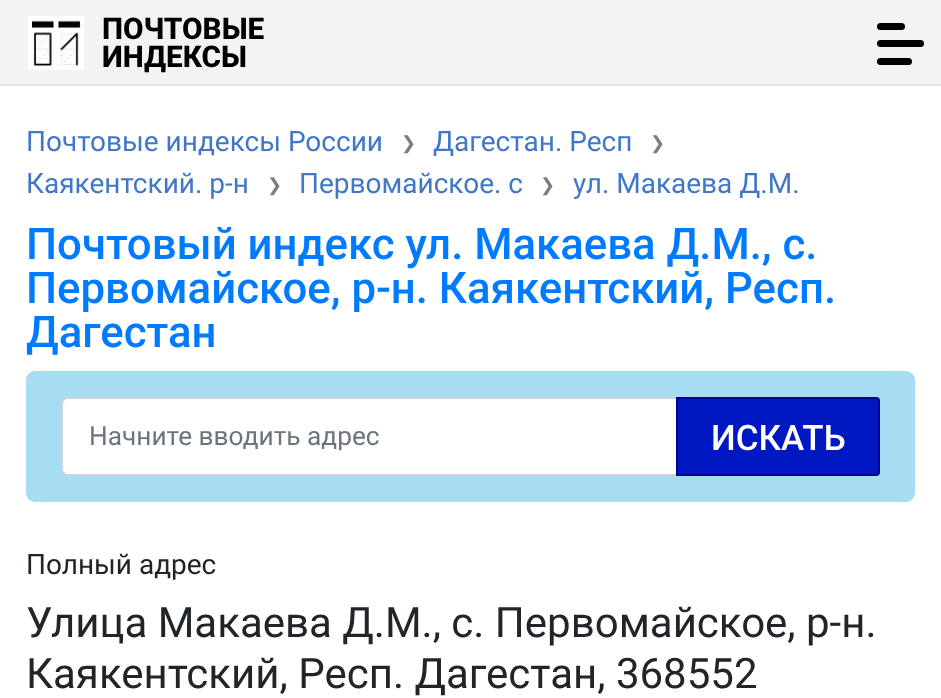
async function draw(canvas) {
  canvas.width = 941
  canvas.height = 698
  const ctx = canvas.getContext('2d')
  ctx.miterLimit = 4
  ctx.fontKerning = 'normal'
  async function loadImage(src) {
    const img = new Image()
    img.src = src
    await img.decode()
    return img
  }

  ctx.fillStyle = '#fff'
  ctx.fillRect(0, 0, 941, 698)
  ctx.fillStyle = '#f3f3f3'
  ctx.fillRect(0, 0, 941, 84)
  ctx.fillStyle = '#e2e2e2'
  ctx.fillRect(0, 84, 941, 2)
  ctx.drawImage(await loadImage('image0.png'), 28, 16, 56, 54)
  ctx.font = '800 29.75px Roboto'
  ctx.fillStyle = '#000'
  ctx.fillText('ПОЧТОВЫЕ', 102, 39)
  ctx.fillText('ИНДЕКСЫ', 102, 67)
  ctx.beginPath()
  ctx.roundRect(877, 40, 47, 7, 3.5)
  ctx.fill()
  ctx.beginPath()
  ctx.roundRect(877, 23, 28, 7, 3.5)
  ctx.fill()
  ctx.beginPath()
  ctx.roundRect(877, 58, 35, 7, 3.5)
  ctx.fill()
  ctx.font = '28px Roboto'
  ctx.fillStyle = '#4177c7'
  ctx.fillText('Почтовые индексы России', 26, 151)
  ctx.font = '18px DejaVu Sans'
  ctx.fillStyle = '#7d7d7d'
  ctx.fillText('❯', 401, 149)
  ctx.font = '28px Roboto'
  ctx.fillStyle = '#4177c7'
  ctx.fillText('Дагестан. Респ', 433, 151)
  ctx.font = '18px DejaVu Sans'
  ctx.fillStyle = '#7d7d7d'
  ctx.fillText('❯', 650, 149)
  ctx.font = '28px Roboto'
  ctx.fillStyle = '#4177c7'
  ctx.fillText('Каякентский. р-н', 26, 193)
  ctx.font = '18px DejaVu Sans'
  ctx.fillStyle = '#7d7d7d'
  ctx.fillText('❯', 267, 191)
  ctx.font = '28px Roboto'
  ctx.fillStyle = '#4177c7'
  ctx.fillText('Первомайское. с', 299, 193)
  ctx.font = '18px DejaVu Sans'
  ctx.fillStyle = '#7d7d7d'
  ctx.fillText('❯', 540, 191)
  ctx.font = '28px Roboto'
  ctx.fillStyle = '#4177c7'
  ctx.fillText('ул. Макаева Д.М.', 573, 193)
  ctx.font = '500 43.75px Roboto'
  ctx.fillStyle = '#007bff'
  ctx.fillText('Почтовый индекс ул. Макаева Д.М., с.', 26, 259)
  ctx.fillText('Первомайское, р-н. Каякентский, Респ.', 26, 303)
  ctx.fillText('Дагестан', 26, 347)
  ctx.fillStyle = '#a6ddf3'
  ctx.beginPath()
  ctx.roundRect(26, 371, 889, 131, 9)
  ctx.fill()
  ctx.fillStyle = '#fff'
  ctx.beginPath()
  ctx.roundRect(62, 398, 817, 77, 6)
  ctx.fill()
  ctx.strokeStyle = '#ced4da'
  ctx.lineWidth = 2
  ctx.stroke()
  ctx.font = '26.25px Roboto'
  ctx.fillStyle = '#6c757d'
  ctx.fillText('Начните вводить адрес', 89, 445)
  ctx.fillStyle = '#0018c1'
  ctx.beginPath()
  ctx.roundRect(677, 398, 202, 77, [0, 3, 3, 0])
  ctx.fill()
  ctx.strokeStyle = '#02009a'
  ctx.stroke()
  ctx.font = '500 35px Roboto'
  ctx.fillStyle = '#fff'
  ctx.fillText('ИСКАТЬ', 711, 450)
  ctx.font = '28px Roboto'
  ctx.fillStyle = '#212529'
  ctx.fillText('Полный адрес', 26, 574)
  ctx.font = '42px Roboto'
  ctx.fillText('Улица Макаева Д.М., с. Первомайское, р-н.', 26, 637)
  ctx.fillText('Каякентский, Респ. Дагестан, 368552', 26, 688)
}

draw(document.querySelector('canvas'))
